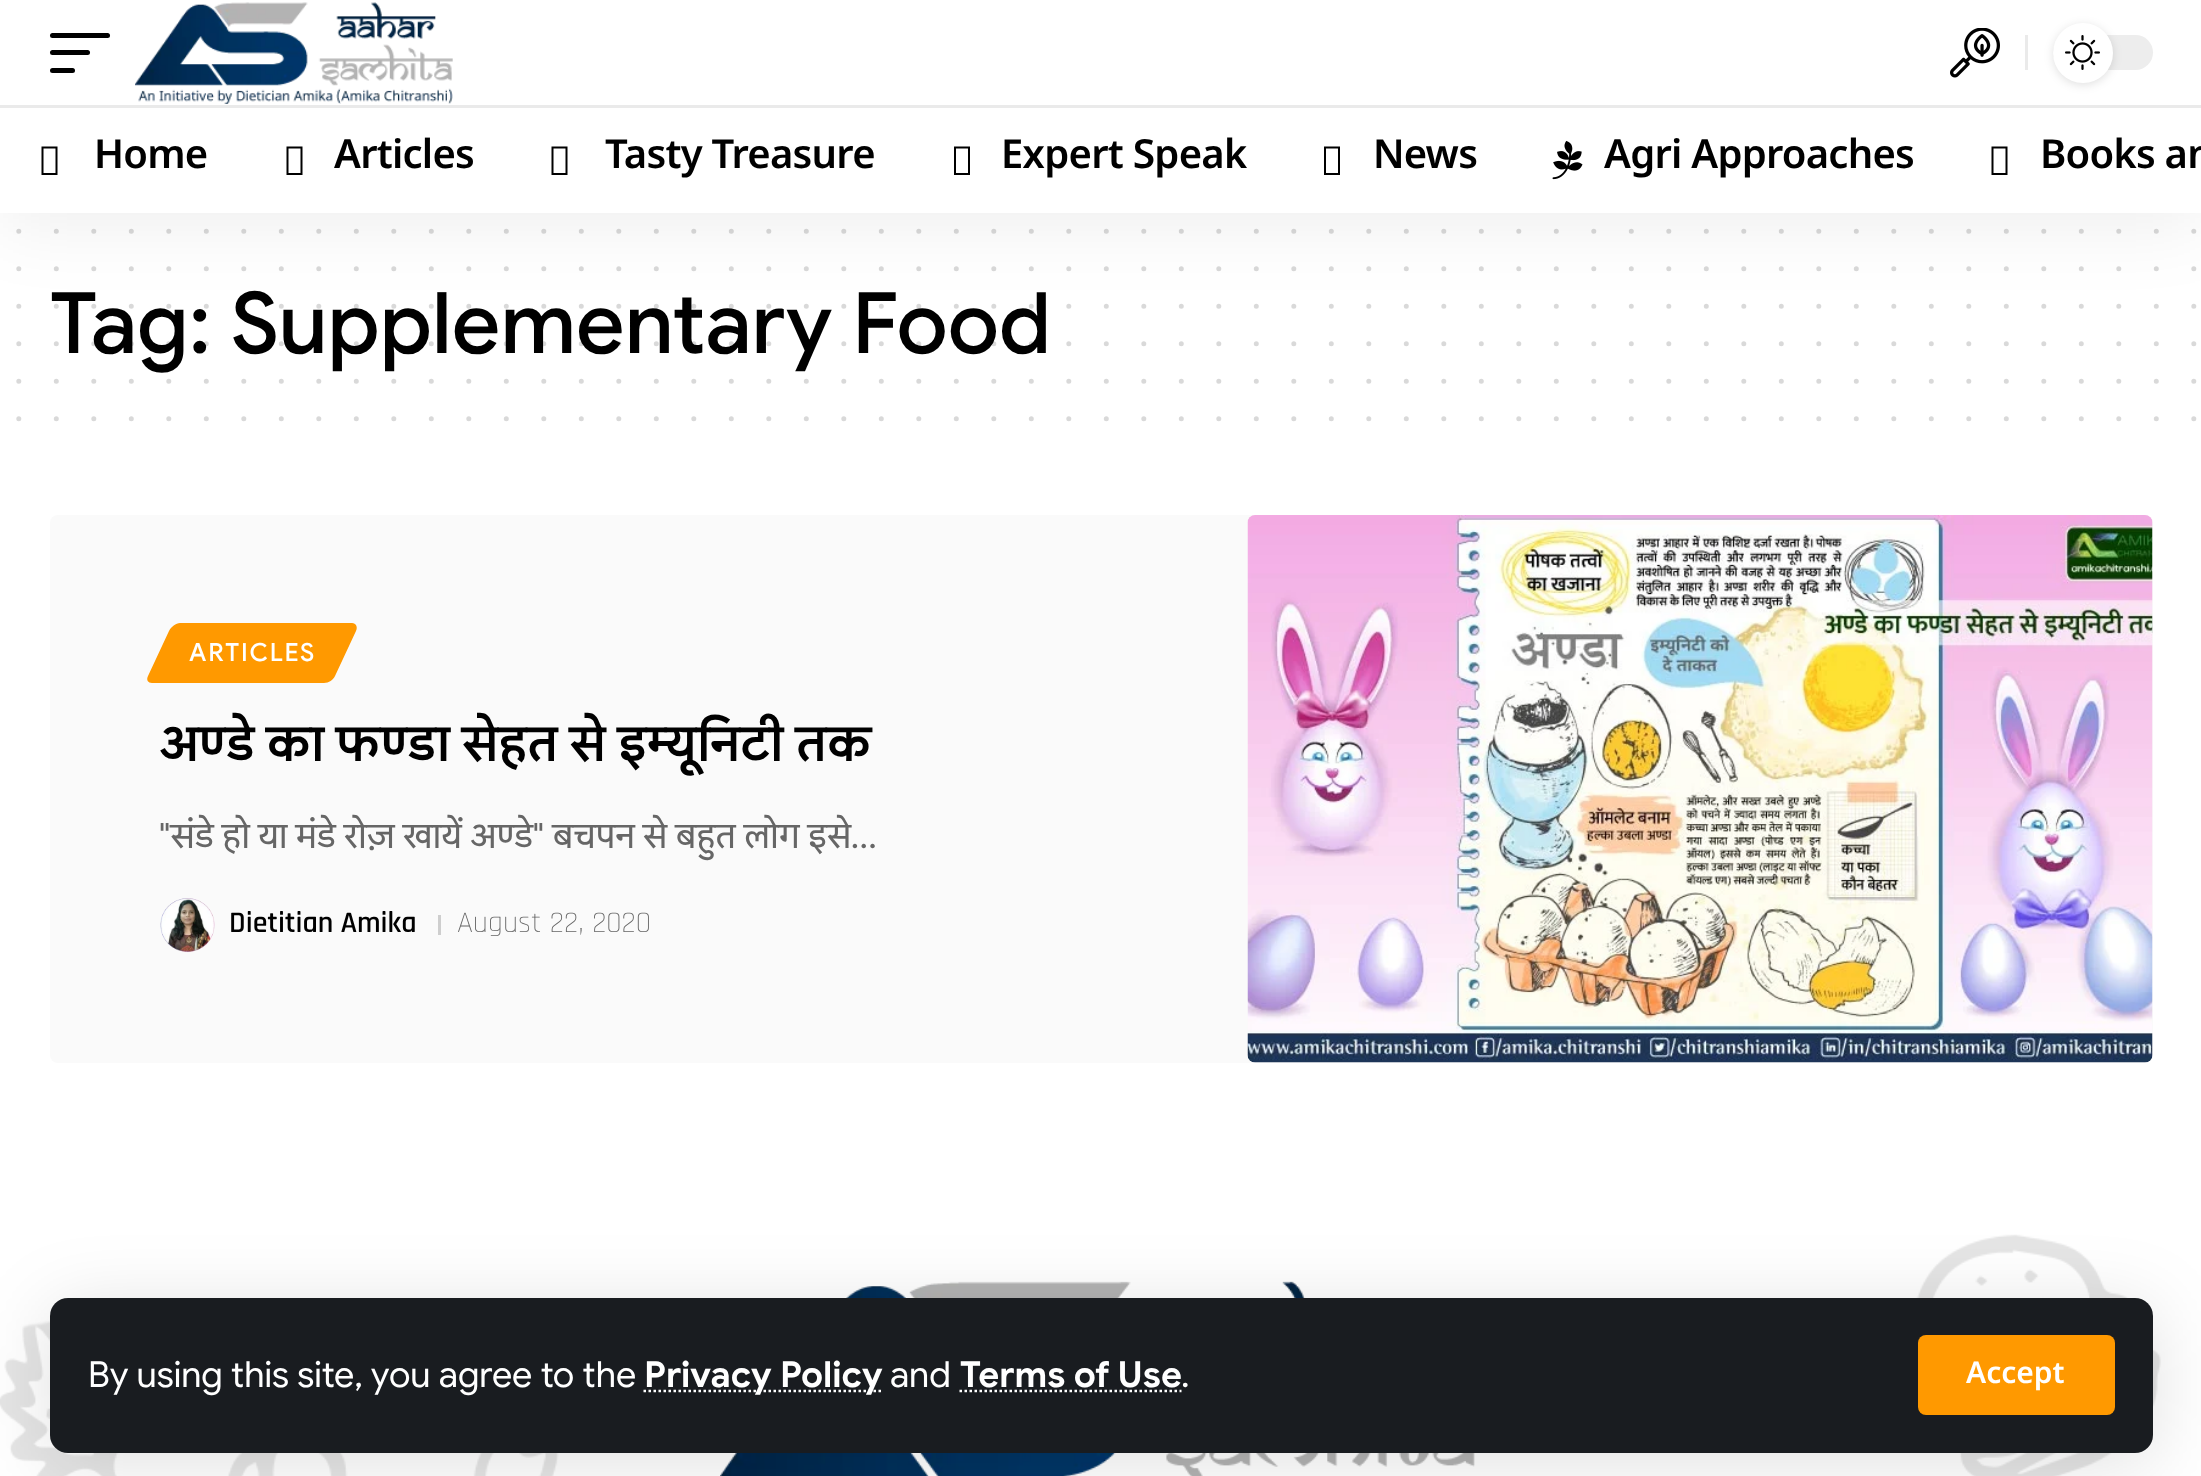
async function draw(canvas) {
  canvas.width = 2201
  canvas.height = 1476
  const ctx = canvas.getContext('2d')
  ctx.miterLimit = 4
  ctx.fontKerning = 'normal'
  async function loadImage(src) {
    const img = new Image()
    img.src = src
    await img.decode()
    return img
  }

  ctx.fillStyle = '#fff'
  ctx.fillRect(0, 0, 2201, 1476)
  ctx.beginPath()
  ctx.moveTo(18.8, 231.2)
  ctx.lineTo(2194.2, 231.2)
  ctx.strokeStyle = '#d9d9d9'
  ctx.lineWidth = 5
  ctx.lineCap = 'round'
  ctx.setLineDash([0, 37.5])
  ctx.stroke()
  ctx.beginPath()
  ctx.moveTo(18.8, 268.8)
  ctx.lineTo(2194.2, 268.8)
  ctx.stroke()
  ctx.font = '500 85px Google Sans'
  ctx.fillStyle = '#000'
  ctx.fillText('Tag: Supplementary Food', 50, 353)
  ctx.beginPath()
  ctx.moveTo(18.8, 306.2)
  ctx.lineTo(2194.2, 306.2)
  ctx.strokeStyle = '#00000026'
  ctx.stroke()
  ctx.fillStyle = '#00000012'
  ctx.filter = 'blur(37.5px)'
  ctx.beginPath()
  ctx.rect(0, 10, 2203, 213)
  ctx.fill()
  ctx.filter = 'none'
  ctx.fillStyle = '#fff'
  ctx.fillRect(0, 0, 2201, 213)
  ctx.fillStyle = '#000'
  ctx.beginPath()
  ctx.roundRect(50, 33, 60, 5, 2.5)
  ctx.fill()
  ctx.beginPath()
  ctx.roundRect(50, 50, 40, 5, 2.5)
  ctx.fill()
  ctx.beginPath()
  ctx.roundRect(50, 68, 25, 5, 2.5)
  ctx.fill()
  ctx.drawImage(await loadImage('image0.png'), 135, 2, 318, 102)
  ctx.drawImage(await loadImage('image1.png'), 1950, 28, 50, 50)
  ctx.fillStyle = '#eaeaea'
  ctx.fillRect(2025, 35, 3, 35)
  ctx.fillStyle = '#ededed'
  ctx.beginPath()
  ctx.roundRect(2053, 35, 100, 35, 17.5)
  ctx.fill()
  ctx.fillStyle = '#0000001f'
  ctx.filter = 'blur(5px)'
  ctx.beginPath()
  ctx.roundRect(2053, 25, 60, 60, 30)
  ctx.fill()
  ctx.filter = 'none'
  ctx.fillStyle = '#fff'
  ctx.beginPath()
  ctx.arc(2083, 53, 30, 0, 2 * Math.PI)
  ctx.fill()
  ctx.drawImage(await loadImage('image2.png'), 2065, 35, 35, 35)
  ctx.fillStyle = '#eaeaea'
  ctx.fillRect(0, 105, 2201, 3)
  ctx.fillStyle = '#000'
  ctx.beginPath()
  ctx.moveTo(41.5, 175)
  ctx.lineTo(41.5, 146.5)
  ctx.lineTo(57.5, 146.5)
  ctx.lineTo(57.5, 175)
  ctx.closePath()
  ctx.moveTo(43.5, 173)
  ctx.lineTo(55.5, 173)
  ctx.lineTo(55.5, 148.5)
  ctx.lineTo(43.5, 148.5)
  ctx.closePath()
  ctx.fill()
  ctx.letterSpacing = '-0.75px'
  ctx.font = '600 40px Noto Sans Devanagari'
  ctx.fillText('Home', 94, 168)
  ctx.beginPath()
  ctx.moveTo(286.5, 175)
  ctx.lineTo(286.5, 146.5)
  ctx.lineTo(302.5, 146.5)
  ctx.lineTo(302.5, 175)
  ctx.closePath()
  ctx.moveTo(288.5, 173)
  ctx.lineTo(300.5, 173)
  ctx.lineTo(300.5, 148.5)
  ctx.lineTo(288.5, 148.5)
  ctx.closePath()
  ctx.fill()
  ctx.fillText('Articles', 334, 168)
  ctx.beginPath()
  ctx.moveTo(551.5, 175)
  ctx.lineTo(551.5, 146.5)
  ctx.lineTo(567.5, 146.5)
  ctx.lineTo(567.5, 175)
  ctx.closePath()
  ctx.moveTo(553.5, 173)
  ctx.lineTo(565.5, 173)
  ctx.lineTo(565.5, 148.5)
  ctx.lineTo(553.5, 148.5)
  ctx.closePath()
  ctx.fill()
  ctx.fillText('Tasty Treasure', 605, 168)
  ctx.beginPath()
  ctx.moveTo(954, 175)
  ctx.lineTo(954, 146.5)
  ctx.lineTo(970, 146.5)
  ctx.lineTo(970, 175)
  ctx.closePath()
  ctx.moveTo(956, 173)
  ctx.lineTo(968, 173)
  ctx.lineTo(968, 148.5)
  ctx.lineTo(956, 148.5)
  ctx.closePath()
  ctx.fill()
  ctx.fillText('Expert Speak', 1001, 168)
  ctx.beginPath()
  ctx.moveTo(1324, 175)
  ctx.lineTo(1324, 146.5)
  ctx.lineTo(1340, 146.5)
  ctx.lineTo(1340, 175)
  ctx.closePath()
  ctx.moveTo(1326, 173)
  ctx.lineTo(1338, 173)
  ctx.lineTo(1338, 148.5)
  ctx.lineTo(1326, 148.5)
  ctx.closePath()
  ctx.fill()
  ctx.fillText('News', 1373, 168)
  ctx.drawImage(await loadImage('image3.png'), 1552, 140, 31, 40)
  ctx.fillText('Agri Approaches', 1604, 168)
  ctx.beginPath()
  ctx.moveTo(1991.5, 175)
  ctx.lineTo(1991.5, 146.5)
  ctx.lineTo(2007.5, 146.5)
  ctx.lineTo(2007.5, 175)
  ctx.closePath()
  ctx.moveTo(1993.5, 173)
  ctx.lineTo(2005.5, 173)
  ctx.lineTo(2005.5, 148.5)
  ctx.lineTo(1993.5, 148.5)
  ctx.closePath()
  ctx.fill()
  ctx.fillText('Books an', 2040, 168)
  ctx.drawImage(await loadImage('image6.png'), 0, 1234, 2161, 242)
  ctx.drawImage(await loadImage('image7.png'), 720, 1281, 755, 195)
  ctx.fillStyle = '#0000001f'
  ctx.filter = 'blur(37.5px)'
  ctx.beginPath()
  ctx.roundRect(50, 1308, 2103, 155, 18)
  ctx.fill()
  ctx.filter = 'none'
  ctx.fillStyle = '#191c20'
  ctx.beginPath()
  ctx.roundRect(50, 1298, 2103, 155, 18)
  ctx.fill()
  ctx.letterSpacing = '0px'
  ctx.font = '36px Google Sans'
  ctx.fillStyle = '#fff'
  ctx.fillText('By using this site, you agree to the', 88, 1387)
  ctx.beginPath()
  ctx.moveTo(643.5, 1391)
  ctx.lineTo(882, 1391)
  ctx.strokeStyle = '#fff'
  ctx.lineWidth = 2.5
  ctx.lineCap = 'butt'
  ctx.setLineDash([2.5, 2.5])
  ctx.stroke()
  ctx.font = 'bold 36px Google Sans'
  ctx.fillText('Privacy Policy', 644, 1387)
  ctx.font = '36px Google Sans'
  ctx.fillText('and', 890, 1387)
  ctx.font = 'bold 36px Google Sans'
  ctx.fillText('Terms of Use', 960, 1387)
  ctx.beginPath()
  ctx.moveTo(959.5, 1391)
  ctx.lineTo(1181.5, 1391)
  ctx.stroke()
  ctx.font = '36px Google Sans'
  ctx.fillText('.', 1181, 1387)
  ctx.fillStyle = '#f90'
  ctx.beginPath()
  ctx.roundRect(1918, 1335, 197, 80, 8)
  ctx.fill()
  ctx.font = '600 30px Noto Sans Devanagari'
  ctx.fillStyle = '#fff'
  ctx.fillText('Accept', 1966, 1383)
  ctx.beginPath()
  ctx.moveTo(18.8, 343.8)
  ctx.lineTo(2194.2, 343.8)
  ctx.strokeStyle = '#00000026'
  ctx.lineWidth = 5
  ctx.lineCap = 'round'
  ctx.setLineDash([0, 37.5])
  ctx.stroke()
  ctx.beginPath()
  ctx.moveTo(18.8, 381.2)
  ctx.lineTo(2194.2, 381.2)
  ctx.strokeStyle = '#d9d9d9'
  ctx.stroke()
  ctx.beginPath()
  ctx.moveTo(18.8, 418.8)
  ctx.lineTo(2194.2, 418.8)
  ctx.stroke()
  ctx.fillStyle = '#fafafa'
  ctx.beginPath()
  ctx.roundRect(50, 515, 2103, 548, 8)
  ctx.fill()
  ctx.fillStyle = '#f90'
  ctx.beginPath()
  ctx.moveTo(180, 623)
  ctx.lineTo(352, 623)
  ctx.bezierCurveTo(356, 623, 358, 627, 356, 631)
  ctx.lineTo(335, 676)
  ctx.bezierCurveTo(333, 680, 329, 683, 324, 683)
  ctx.lineTo(152, 683)
  ctx.bezierCurveTo(148, 683, 146, 680, 148, 676)
  ctx.lineTo(169, 631)
  ctx.bezierCurveTo(171, 627, 176, 623, 180, 623)
  ctx.closePath()
  ctx.fill()
  ctx.letterSpacing = '1.75px'
  ctx.font = '500 25px Google Sans'
  ctx.fillStyle = '#fff'
  ctx.fillText('ARTICLES', 189, 661)
  ctx.letterSpacing = '0px'
  ctx.font = 'bold 50px Google Sans'
  ctx.fillStyle = '#000'
  ctx.fillText('अण्डे का फण्डा सेहत से इम्यूनिटी तक', 159, 761)
  ctx.wordSpacing = '0.1px'
  ctx.font = '35px Google Sans'
  ctx.fillStyle = '#666'
  ctx.fillText('"संडे हो या मंडे रोज़ खायें अण्डे" बचपन से बहुत लोग इसे…', 159, 848)
  ctx.drawImage(await loadImage('image4.png'), 160, 898, 55, 55)
  ctx.wordSpacing = '0px'
  ctx.font = '600 30px Rajdhani'
  ctx.fillStyle = '#000'
  ctx.fillText('Dietitian Amika', 229, 932)
  ctx.fillStyle = '#cecece'
  ctx.fillRect(438, 915, 3, 20)
  ctx.font = '300 30px Rajdhani'
  ctx.fillStyle = '#666'
  ctx.fillText('August 22, 2020', 457, 932)
  ctx.drawImage(await loadImage('image5.png'), 1247, 515, 906, 548)
}

draw(document.querySelector('canvas'))
